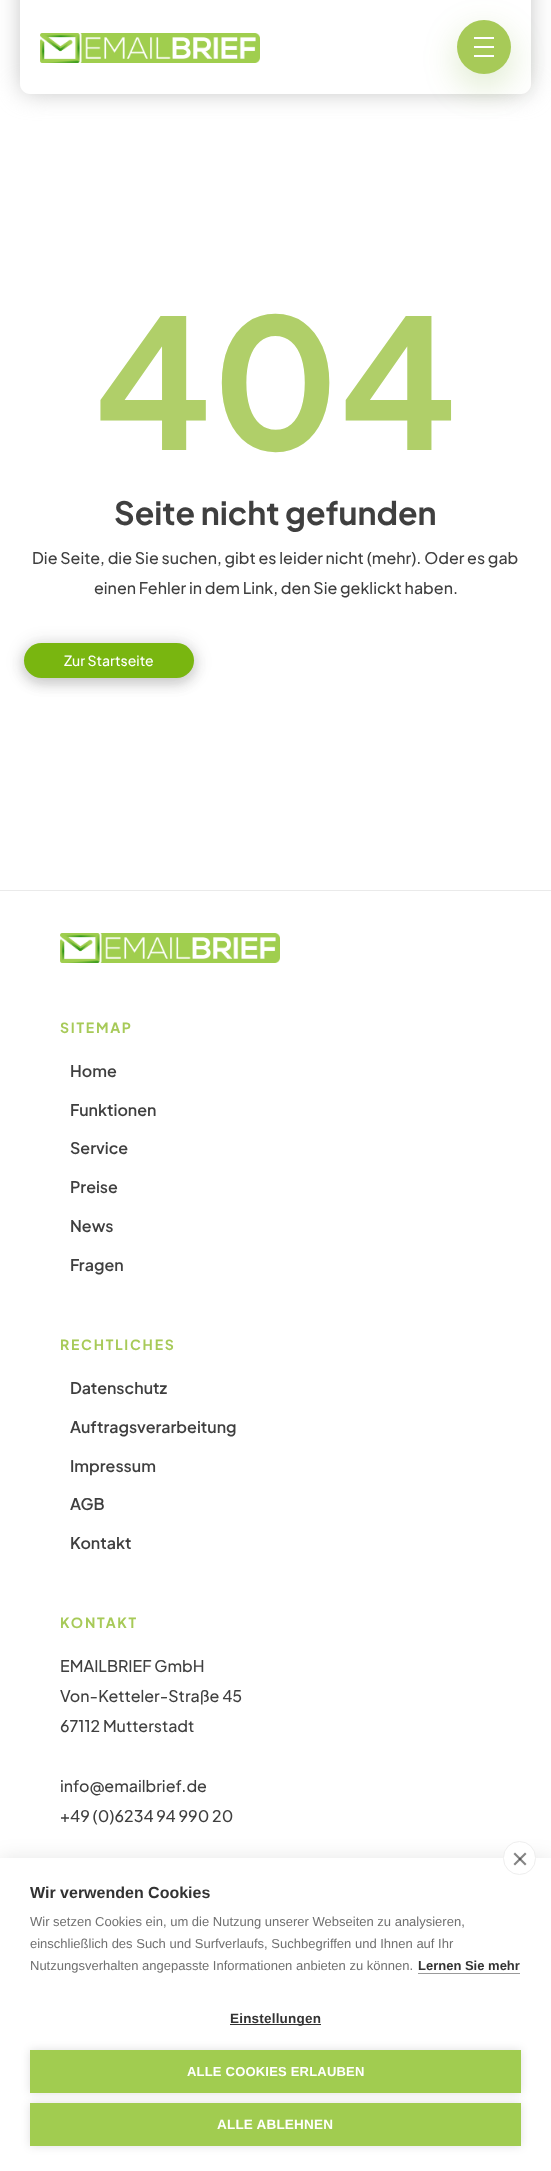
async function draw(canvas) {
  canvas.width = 551
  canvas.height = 2171
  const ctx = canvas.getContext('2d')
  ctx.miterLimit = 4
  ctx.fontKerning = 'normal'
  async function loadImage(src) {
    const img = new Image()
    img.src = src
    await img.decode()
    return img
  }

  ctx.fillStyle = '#fff'
  ctx.fillRect(0, 0, 551, 2171)
  ctx.fillStyle = '#c0c0c0'
  ctx.filter = 'blur(12.5px)'
  ctx.beginPath()
  ctx.roundRect(22, -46, 507, 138, 8)
  ctx.fill()
  ctx.filter = 'none'
  ctx.fillStyle = '#fff'
  ctx.beginPath()
  ctx.moveTo(20, -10)
  ctx.lineTo(531, -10)
  ctx.lineTo(531, 84)
  ctx.bezierCurveTo(531, 89.5, 526.5, 94, 521, 94)
  ctx.lineTo(30, 94)
  ctx.bezierCurveTo(24.5, 94, 20, 89.5, 20, 84)
  ctx.closePath()
  ctx.fill()
  ctx.drawImage(await loadImage('image0.png'), 40, 33, 220, 30)
  ctx.fillStyle = '#5c950736'
  ctx.filter = 'blur(17.5px)'
  ctx.beginPath()
  ctx.roundRect(457, 32, 54, 54, 27)
  ctx.fill()
  ctx.filter = 'none'
  ctx.fillStyle = '#a7ca58'
  ctx.beginPath()
  ctx.arc(484, 47, 27, 0, 2 * Math.PI)
  ctx.fill()
  ctx.fillStyle = '#fff'
  ctx.fillRect(474, 37, 20, 2)
  ctx.fillRect(474, 46, 20, 2)
  ctx.fillRect(474, 55, 20, 2)
  ctx.font = 'bold 180px Plus Jakarta Sans'
  ctx.fillStyle = '#b0cf69'
  ctx.fillText('404', 94, 450)
  ctx.font = 'bold 32px Plus Jakarta Sans'
  ctx.fillStyle = '#3f3f3f'
  ctx.fillText('Seite nicht gefunden', 114, 525)
  ctx.font = '500 16px Plus Jakarta Sans'
  ctx.fillText('Die Seite, die Sie suchen, gibt es leider nicht (mehr). Oder es gab', 32, 564)
  ctx.fillText('einen Fehler in dem Link, den Sie geklickt haben.', 94, 594)
  ctx.fillStyle = '#1919190f'
  ctx.filter = 'blur(7px)'
  ctx.beginPath()
  ctx.roundRect(24, 647, 170, 35, 17.5)
  ctx.fill()
  ctx.filter = 'none'
  ctx.fillStyle = '#1b1b1b1a'
  ctx.filter = 'blur(7.5px)'
  ctx.beginPath()
  ctx.roundRect(20, 640, 178, 43, 21.5)
  ctx.fill()
  ctx.filter = 'none'
  ctx.fillStyle = '#0000001a'
  ctx.filter = 'blur(7px)'
  ctx.beginPath()
  ctx.roundRect(24, 649, 170, 35, 17.5)
  ctx.fill()
  ctx.filter = 'none'
  ctx.fillStyle = '#79b610'
  ctx.beginPath()
  ctx.roundRect(24, 643, 170, 35, 17.5)
  ctx.fill()
  ctx.font = '500 14px Plus Jakarta Sans'
  ctx.fillStyle = '#fff'
  ctx.fillText('Zur Startseite', 64, 666)
  ctx.fillStyle = '#eaeaea'
  ctx.fillRect(0, 890, 551, 1)
  ctx.drawImage(await loadImage('image1.png'), 60, 933, 220, 30)
  ctx.letterSpacing = '1.75px'
  ctx.font = 'bold 14px Plus Jakarta Sans'
  ctx.fillStyle = '#a7ca58'
  ctx.fillText('SITEMAP', 60, 1033)
  ctx.letterSpacing = '0px'
  ctx.font = '600 16px Plus Jakarta Sans'
  ctx.fillStyle = '#3f3f3f'
  ctx.fillText('Home', 70, 1077)
  ctx.fillText('Funktionen', 70, 1116)
  ctx.fillText('Service', 70, 1154)
  ctx.fillText('Preise', 70, 1193)
  ctx.fillText('News', 70, 1232)
  ctx.fillText('Fragen', 70, 1271)
  ctx.letterSpacing = '1.75px'
  ctx.font = 'bold 14px Plus Jakarta Sans'
  ctx.fillStyle = '#a7ca58'
  ctx.fillText('RECHTLICHES', 60, 1350)
  ctx.letterSpacing = '0px'
  ctx.font = '600 16px Plus Jakarta Sans'
  ctx.fillStyle = '#3f3f3f'
  ctx.fillText('Datenschutz', 70, 1394)
  ctx.fillText('Auftragsverarbeitung', 70, 1433)
  ctx.fillText('Impressum', 70, 1472)
  ctx.fillText('AGB', 70, 1510)
  ctx.fillText('Kontakt', 70, 1549)
  ctx.letterSpacing = '1.75px'
  ctx.font = 'bold 14px Plus Jakarta Sans'
  ctx.fillStyle = '#a7ca58'
  ctx.fillText('KONTAKT', 60, 1628)
  ctx.letterSpacing = '0px'
  ctx.font = '500 16px Plus Jakarta Sans'
  ctx.fillStyle = '#3f3f3f'
  ctx.fillText('EMAILBRIEF GmbH', 60, 1672)
  ctx.fillText('Von-Ketteler-Straße 45', 60, 1702)
  ctx.fillText('67112 Mutterstadt', 60, 1732)
  ctx.fillText('info@emailbrief.de', 60, 1792)
  ctx.fillText('‍+49 (0)6234 94 990 20', 60, 1822)
  ctx.fillStyle = '#0000001a'
  ctx.filter = 'blur(10px)'
  ctx.beginPath()
  ctx.rect(0, 1858, 551, 313)
  ctx.fill()
  ctx.filter = 'none'
  ctx.fillStyle = '#fff'
  ctx.fillRect(0, 1858, 551, 313)
  ctx.beginPath()
  ctx.roundRect(503.5, 1841.5, 32, 33, 16)
  ctx.fill()
  ctx.strokeStyle = '#eee'
  ctx.stroke()
  ctx.fillStyle = '#858585'
  ctx.beginPath()
  ctx.moveTo(513.5, 1864)
  ctx.lineTo(525, 1852.5)
  ctx.lineTo(526.5, 1854)
  ctx.lineTo(515, 1865.5)
  ctx.closePath()
  ctx.fill()
  ctx.fillStyle = '#33333399'
  ctx.beginPath()
  ctx.moveTo(515, 1852.5)
  ctx.lineTo(526.5, 1864)
  ctx.lineTo(525, 1865.5)
  ctx.lineTo(513.5, 1854)
  ctx.closePath()
  ctx.fill()
  ctx.font = 'bold 16px Liberation Sans'
  ctx.fillStyle = '#333'
  ctx.fillText('Wir verwenden Cookies', 30, 1898)
  ctx.font = '13px Liberation Sans'
  ctx.fillStyle = '#707070'
  ctx.fillText('Wir setzen Cookies ein, um die Nutzung unserer Webseiten zu analysieren,', 30, 1926)
  ctx.fillText('einschließlich des Such und Surfverlaufs, Suchbegriffen und Ihnen auf Ihr', 30, 1948)
  ctx.fillText('Nutzungsverhalten angepasste Informationen anbieten zu können.', 30, 1970)
  ctx.font = 'bold 13px Liberation Sans'
  ctx.fillStyle = '#333'
  ctx.fillText('Lernen Sie mehr', 418, 1970)
  ctx.fillStyle = '#999'
  ctx.fillRect(418, 1973, 102, 1)
  ctx.fillStyle = '#333'
  ctx.fillRect(230, 2024, 91, 1)
  ctx.letterSpacing = '0.2px'
  ctx.font = 'bold 13.5px Liberation Sans'
  ctx.fillText('Einstellungen', 230, 2023)
  ctx.fillStyle = '#0000001f'
  ctx.filter = 'blur(5px)'
  ctx.beginPath()
  ctx.rect(30, 2050, 491, 43)
  ctx.fill()
  ctx.filter = 'none'
  ctx.fillStyle = '#a1cc50'
  ctx.fillRect(30, 2050, 491, 43)
  ctx.font = 'bold 13px Liberation Sans'
  ctx.fillStyle = '#fff'
  ctx.fillText('ALLE COOKIES ERLAUBEN', 187, 2076)
  ctx.fillStyle = '#0000001f'
  ctx.filter = 'blur(5px)'
  ctx.beginPath()
  ctx.rect(30, 2103, 491, 43)
  ctx.fill()
  ctx.filter = 'none'
  ctx.fillStyle = '#a1cc50'
  ctx.fillRect(30, 2103, 491, 43)
  ctx.font = 'bold 13.5px Liberation Sans'
  ctx.fillStyle = '#fff'
  ctx.fillText('ALLE ABLEHNEN', 217, 2129)
}

draw(document.querySelector('canvas'))
